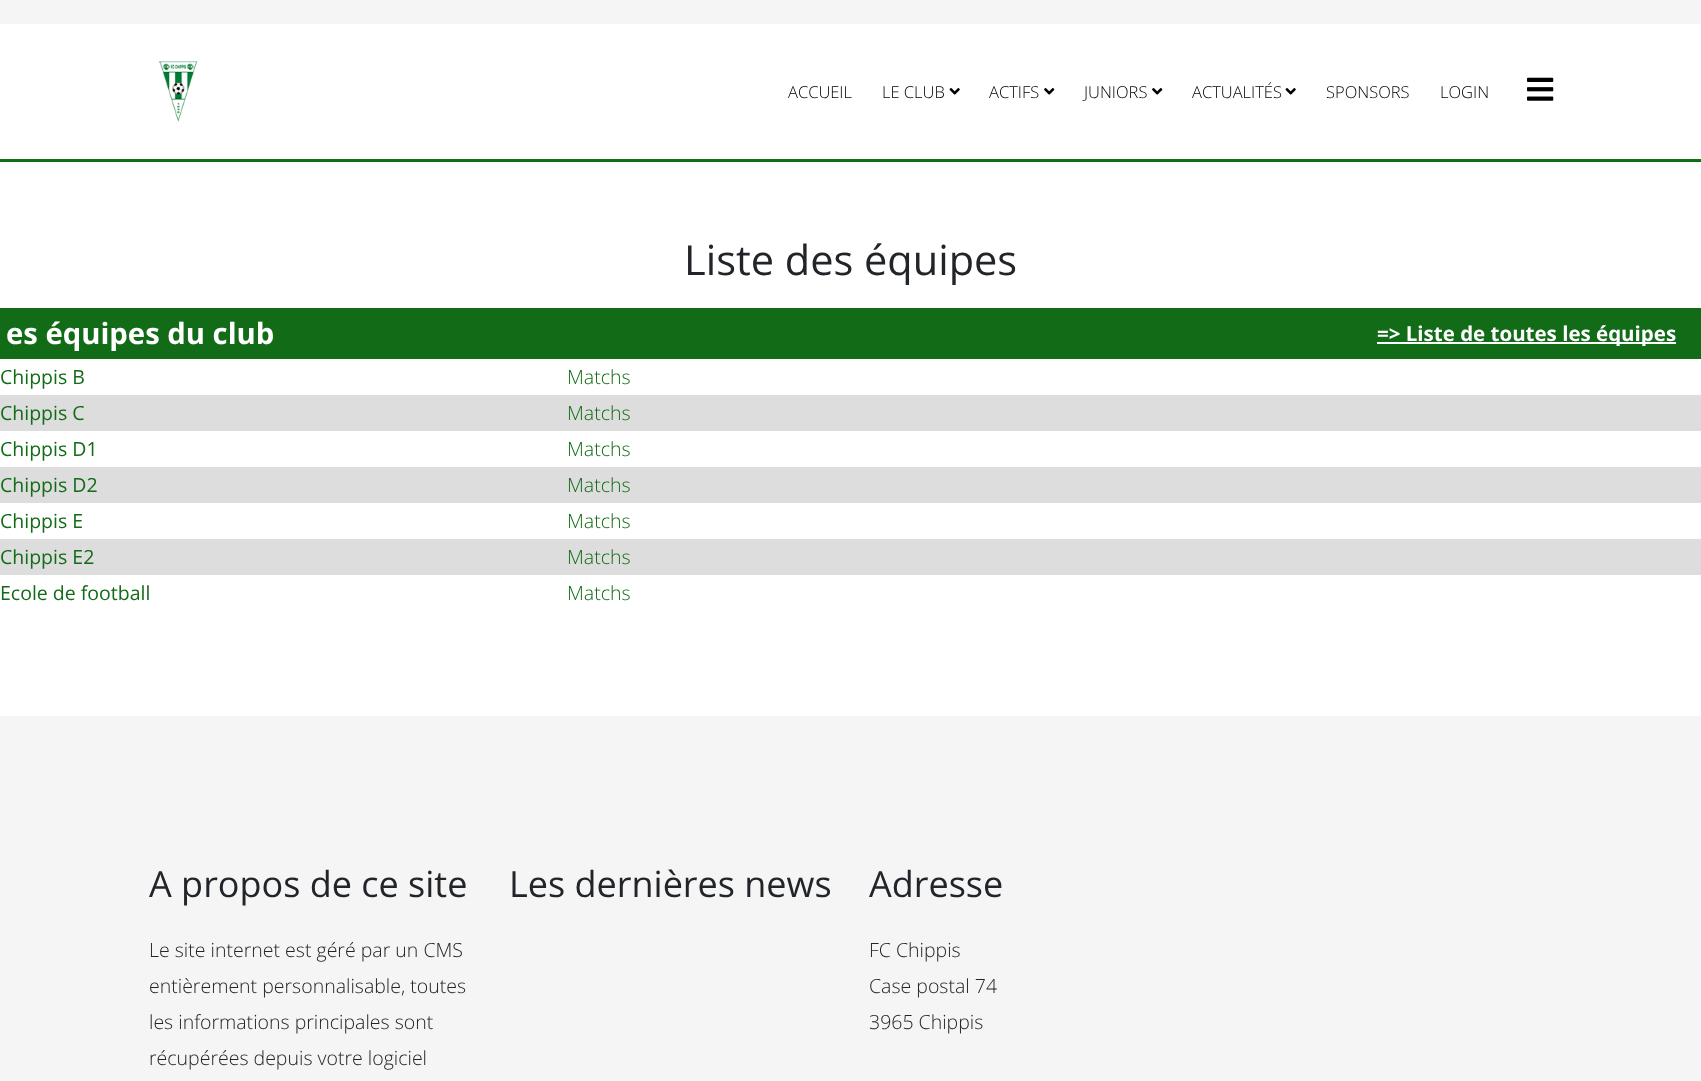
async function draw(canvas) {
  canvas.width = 1701
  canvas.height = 1081
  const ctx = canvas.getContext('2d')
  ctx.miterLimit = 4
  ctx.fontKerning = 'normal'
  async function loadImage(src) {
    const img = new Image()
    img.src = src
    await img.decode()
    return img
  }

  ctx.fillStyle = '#fff'
  ctx.fillRect(0, 0, 1701, 1081)
  ctx.fillStyle = '#f5f5f5'
  ctx.fillRect(0, 0, 1701, 24)
  ctx.fillStyle = '#0d7013'
  ctx.fillRect(0, 159, 1701, 3)
  ctx.drawImage(await loadImage('image0.png'), 159, 61, 39, 61)
  ctx.font = '300 16.5px Open Sans'
  ctx.fillStyle = '#000'
  ctx.fillText('ACCUEIL', 788, 98)
  ctx.fillText('LE CLUB', 882, 98)
  ctx.drawImage(await loadImage('image1.png'), 949, 88, 11, 7)
  ctx.fillText('ACTIFS', 989, 98)
  ctx.drawImage(await loadImage('image2.png'), 1044, 88, 11, 7)
  ctx.fillText('JUNIORS', 1084, 98)
  ctx.drawImage(await loadImage('image2.png'), 1152, 88, 11, 7)
  ctx.fillText('ACTUALITÉS', 1192, 98)
  ctx.drawImage(await loadImage('image1.png'), 1285, 88, 11, 7)
  ctx.fillText('SPONSORS', 1326, 98)
  ctx.fillText('LOGIN', 1440, 98)
  ctx.drawImage(await loadImage('image3.png'), 1527, 77, 27, 24)
  ctx.font = '41.5px Open Sans'
  ctx.fillStyle = '#212529'
  ctx.fillText('Liste des équipes', 684, 275)
  ctx.fillStyle = '#126b17'
  ctx.fillRect(0, 308, 1701, 51)
  ctx.font = 'bold 29.25px Open Sans'
  ctx.fillStyle = '#fff'
  ctx.fillText('es équipes du club', 6, 344)
  ctx.fillRect(1377, 342, 299, 2)
  ctx.font = 'bold 20.5px Open Sans'
  ctx.fillText('=> Liste de toutes les équipes', 1377, 341)
  ctx.font = '19.5px Open Sans'
  ctx.fillStyle = '#126b17'
  ctx.fillText('Chippis B', 0, 384)
  ctx.font = '300 19.5px Open Sans'
  ctx.fillText('Matchs', 567, 384)
  ctx.fillStyle = '#ddd'
  ctx.fillRect(0, 395, 1701, 36)
  ctx.font = '19.5px Open Sans'
  ctx.fillStyle = '#126b17'
  ctx.fillText('Chippis C', 0, 420)
  ctx.font = '300 19.5px Open Sans'
  ctx.fillText('Matchs', 567, 420)
  ctx.font = '19.5px Open Sans'
  ctx.fillText('Chippis D1', 0, 456)
  ctx.font = '300 19.5px Open Sans'
  ctx.fillText('Matchs', 567, 456)
  ctx.fillStyle = '#ddd'
  ctx.fillRect(0, 467, 1701, 36)
  ctx.font = '19.5px Open Sans'
  ctx.fillStyle = '#126b17'
  ctx.fillText('Chippis D2', 0, 492)
  ctx.font = '300 19.5px Open Sans'
  ctx.fillText('Matchs', 567, 492)
  ctx.font = '19.5px Open Sans'
  ctx.fillText('Chippis E', 0, 528)
  ctx.font = '300 19.5px Open Sans'
  ctx.fillText('Matchs', 567, 528)
  ctx.fillStyle = '#ddd'
  ctx.fillRect(0, 539, 1701, 36)
  ctx.font = '19.5px Open Sans'
  ctx.fillStyle = '#126b17'
  ctx.fillText('Chippis E2', 0, 564)
  ctx.font = '300 19.5px Open Sans'
  ctx.fillText('Matchs', 567, 564)
  ctx.font = '19.5px Open Sans'
  ctx.fillText('Ecole de football', 0, 600)
  ctx.font = '300 19.5px Open Sans'
  ctx.fillText('Matchs', 567, 600)
  ctx.fillStyle = '#f5f5f5'
  ctx.fillRect(0, 716, 1701, 365)
  ctx.font = '36px Open Sans'
  ctx.fillStyle = '#212529'
  ctx.fillText('A propos de ce site', 149, 897)
  ctx.font = '300 19.5px Open Sans'
  ctx.fillText('Le site internet est géré par un CMS', 149, 957)
  ctx.fillText('entièrement personnalisable, toutes', 149, 993)
  ctx.fillText('les informations principales sont', 149, 1029)
  ctx.fillText('récupérées depuis votre logiciel', 149, 1065)
  ctx.font = '36px Open Sans'
  ctx.fillText('Les dernières news', 509, 897)
  ctx.fillText('Adresse', 869, 897)
  ctx.font = '300 19.5px Open Sans'
  ctx.fillText('FC Chippis', 869, 957)
  ctx.fillText('Case postal 74', 869, 993)
  ctx.fillText('3965 Chippis', 869, 1029)
}

draw(document.querySelector('canvas'))
